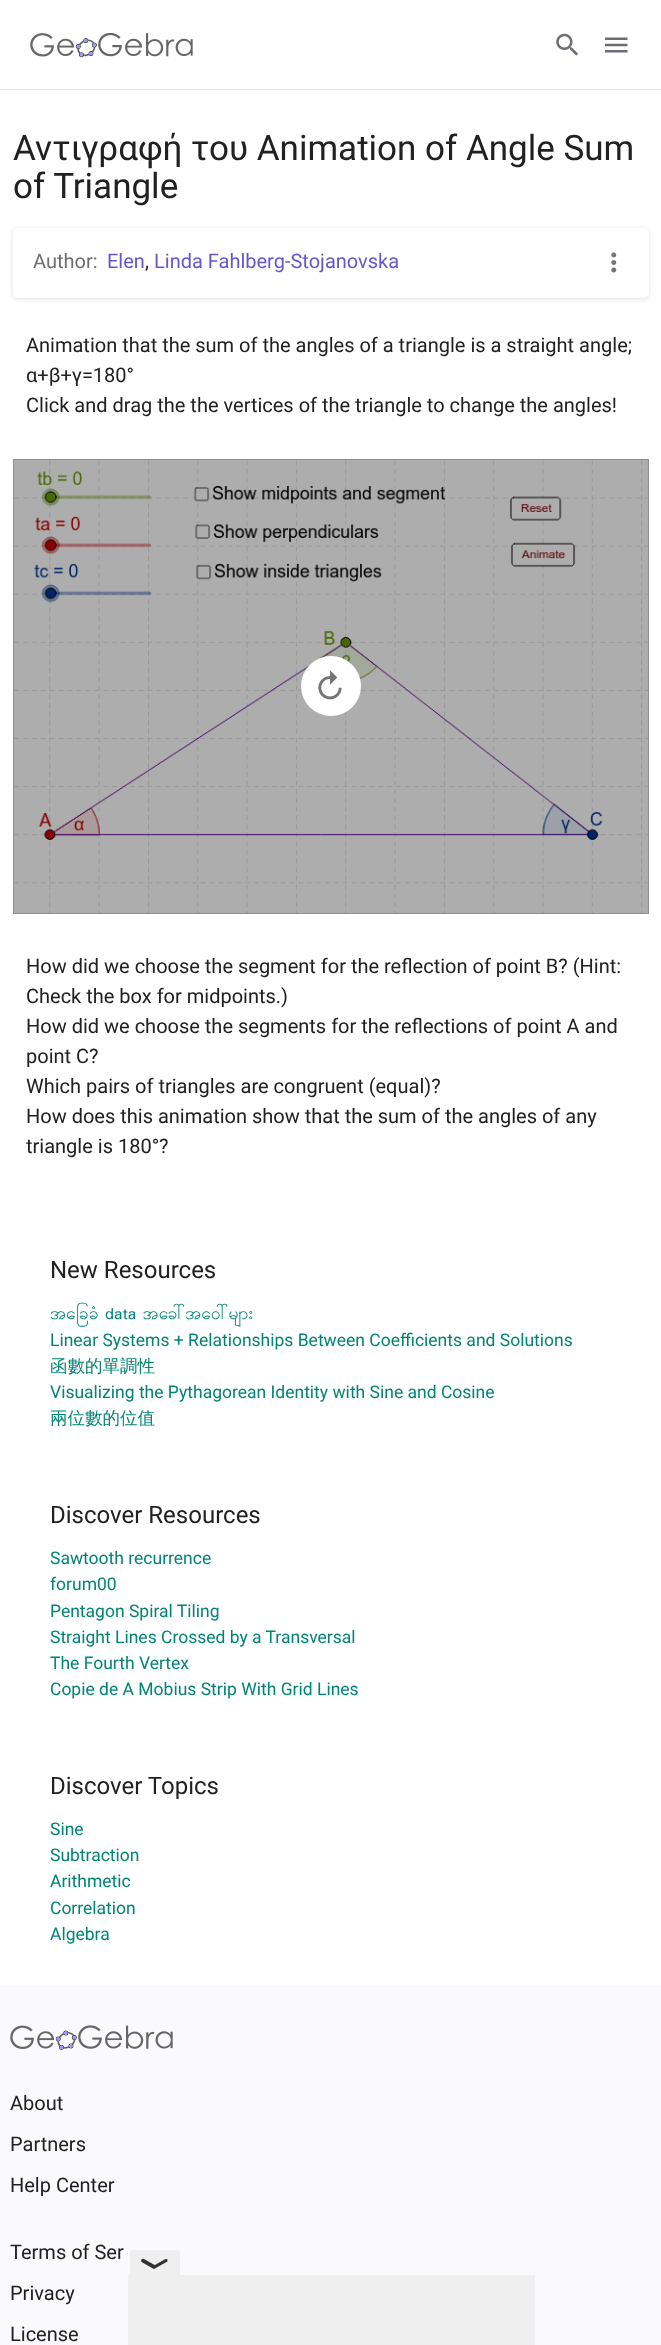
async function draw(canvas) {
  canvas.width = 661
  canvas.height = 2345
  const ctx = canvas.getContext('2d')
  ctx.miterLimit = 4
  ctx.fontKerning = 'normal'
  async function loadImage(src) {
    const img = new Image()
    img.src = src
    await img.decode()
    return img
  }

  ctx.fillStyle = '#fff'
  ctx.fillRect(0, 0, 661, 2345)
  ctx.fillStyle = '#e6e6eb'
  ctx.fillRect(0, 89, 661, 1)
  ctx.drawImage(await loadImage('image0.png'), 30, 33, 163, 25)
  ctx.drawImage(await loadImage('image1.png'), 556, 33, 22, 23)
  ctx.drawImage(await loadImage('image2.png'), 605, 37, 23, 16)
  ctx.font = '35px Roboto'
  ctx.fillStyle = '#212121'
  ctx.fillText('Αντιγραφή του Animation of Angle Sum', 13, 160)
  ctx.fillText('of Triangle', 13, 198)
  ctx.fillStyle = '#1c1c1f24'
  ctx.filter = 'blur(2.5px)'
  ctx.beginPath()
  ctx.roundRect(13, 229, 636, 70, 5)
  ctx.fill()
  ctx.filter = 'none'
  ctx.fillStyle = '#fff'
  ctx.beginPath()
  ctx.roundRect(13, 228, 636, 70, 5)
  ctx.fill()
  ctx.font = '20px Roboto'
  ctx.fillStyle = '#6e6d73'
  ctx.fillText('Author:', 33, 268)
  ctx.fillStyle = '#6557d2'
  ctx.fillText('Elen', 107, 268)
  ctx.fillStyle = '#212121'
  ctx.fillText(',', 145, 268)
  ctx.fillStyle = '#6557d2'
  ctx.fillText('Linda Fahlberg-Stojanovska', 154, 268)
  ctx.drawImage(await loadImage('image3.png'), 611, 252, 6, 21)
  ctx.fillStyle = '#212121'
  ctx.fillText('Animation that the sum of the angles of a triangle is a straight angle;', 26, 352)
  ctx.fillText('α+β+γ=180°', 26, 382)
  ctx.fillText('Click and drag the the vertices of the triangle to change the angles!', 26, 412)
  ctx.drawImage(await loadImage('image4.png'), 14, 460, 634, 453)
  ctx.strokeStyle = '#8f8f8f'
  ctx.strokeRect(13.5, 459.5, 635, 454)
  ctx.fillStyle = '#fff'
  ctx.beginPath()
  ctx.arc(331, 686, 30, 0, 2 * Math.PI)
  ctx.fill()
  ctx.drawImage(await loadImage('image5.png'), 318, 670, 24, 30)
  ctx.fillStyle = '#212121'
  ctx.fillText('How did we choose the segment for the reflection of point B? (Hint:', 26, 973)
  ctx.fillText('Check the box for midpoints.)', 26, 1003)
  ctx.fillText('How did we choose the segments for the reflections of point A and', 26, 1033)
  ctx.fillText('point C?', 26, 1063)
  ctx.fillText('Which pairs of triangles are congruent (equal)?', 26, 1093)
  ctx.fillText('How does this animation show that the sum of the angles of any', 26, 1123)
  ctx.fillText('triangle is 180°?', 26, 1153)
  ctx.font = '24px Roboto'
  ctx.fillText('New Resources', 50, 1278)
  ctx.font = '17.5px Padauk'
  ctx.fillStyle = '#008475'
  ctx.fillText('အခြေခံ data အခေါ်အဝေါ်များ', 50, 1319)
  ctx.font = '17.5px Roboto'
  ctx.fillText('Linear Systems + Relationships Between Coefficients and Solutions', 50, 1346)
  ctx.font = '500 17.5px WenQuanYi Zen Hei'
  ctx.fillText('函數的單調性', 50, 1372)
  ctx.font = '17.5px Roboto'
  ctx.fillText('Visualizing the Pythagorean Identity with Sine and Cosine', 50, 1398)
  ctx.font = '500 17.5px WenQuanYi Zen Hei'
  ctx.fillText('兩位數的位值', 50, 1424)
  ctx.font = '24px Roboto'
  ctx.fillStyle = '#212121'
  ctx.fillText('Discover Resources', 50, 1523)
  ctx.font = '17.5px Roboto'
  ctx.fillStyle = '#008475'
  ctx.fillText('Sawtooth recurrence', 50, 1564)
  ctx.fillText('forum00', 50, 1590)
  ctx.fillText('Pentagon Spiral Tiling', 50, 1617)
  ctx.fillText('Straight Lines Crossed by a Transversal', 50, 1643)
  ctx.fillText('The Fourth Vertex', 50, 1669)
  ctx.fillText('Copie de A Mobius Strip With Grid Lines', 50, 1695)
  ctx.font = '24px Roboto'
  ctx.fillStyle = '#212121'
  ctx.fillText('Discover Topics', 50, 1794)
  ctx.font = '17.5px Roboto'
  ctx.fillStyle = '#008475'
  ctx.fillText('Sine', 50, 1835)
  ctx.fillText('Subtraction', 50, 1861)
  ctx.fillText('Arithmetic', 50, 1887)
  ctx.fillText('Correlation', 50, 1914)
  ctx.fillText('Algebra', 50, 1940)
  ctx.fillStyle = '#fafafc'
  ctx.fillRect(0, 1985, 661, 360)
  ctx.drawImage(await loadImage('image6.png'), 10, 2025, 163, 25)
  ctx.font = '20px Roboto'
  ctx.fillStyle = '#212121'
  ctx.fillText('About', 10, 2110)
  ctx.fillText('Partners', 10, 2151)
  ctx.fillText('Help Center', 10, 2192)
  ctx.fillText('Terms of Ser', 10, 2259)
  ctx.fillText('Privacy', 10, 2300)
  ctx.fillText('License', 10, 2341)
  ctx.fillStyle = '#efefef'
  ctx.beginPath()
  ctx.roundRect(130, 2250, 50, 25, [2.5, 2.5, 0, 0])
  ctx.fill()
  ctx.fillStyle = '#313131'
  ctx.beginPath()
  ctx.moveTo(144, 2259)
  ctx.lineTo(155.5, 2265.5)
  ctx.bezierCurveTo(156.5, 2267.5, 154.5, 2269.5, 153, 2268.5)
  ctx.lineTo(141.5, 2262)
  ctx.bezierCurveTo(140.5, 2260, 142, 2258, 144, 2259)
  ctx.closePath()
  ctx.fill()
  ctx.beginPath()
  ctx.moveTo(154, 2265.5)
  ctx.lineTo(165.5, 2259)
  ctx.bezierCurveTo(167.5, 2258.5, 168.5, 2261, 166.5, 2262)
  ctx.lineTo(155, 2268.5)
  ctx.bezierCurveTo(153, 2269, 152.5, 2266, 154, 2265.5)
  ctx.closePath()
  ctx.fill()
  ctx.fillStyle = '#efefef'
  ctx.fillRect(128, 2275, 407, 70)
}

draw(document.querySelector('canvas'))
